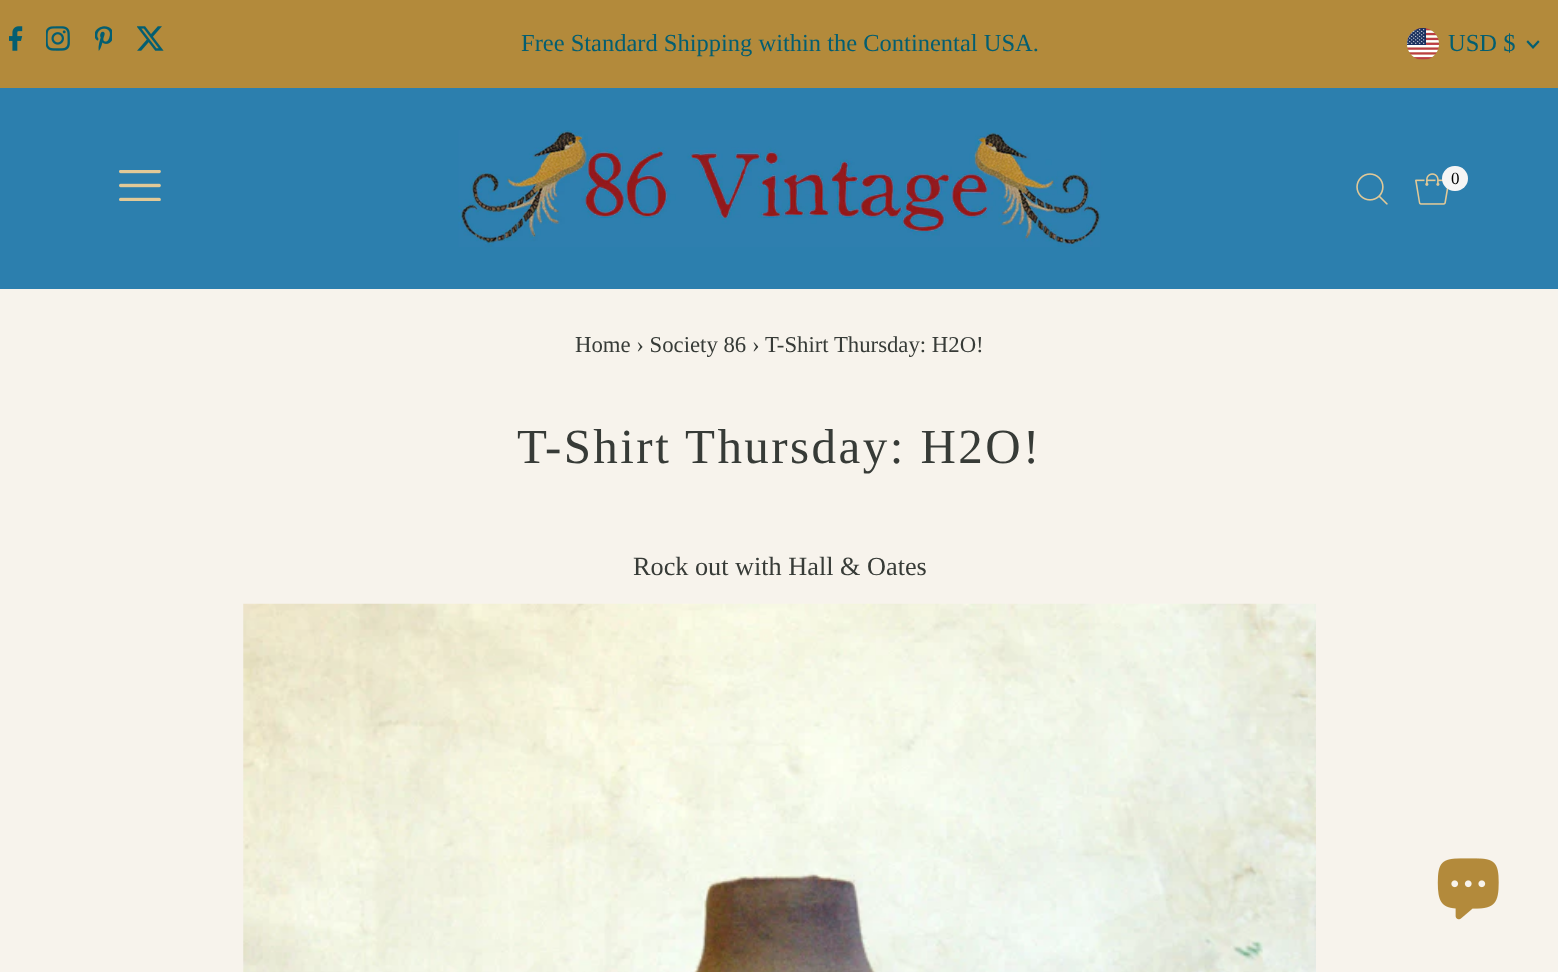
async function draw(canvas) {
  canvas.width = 1558
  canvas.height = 972
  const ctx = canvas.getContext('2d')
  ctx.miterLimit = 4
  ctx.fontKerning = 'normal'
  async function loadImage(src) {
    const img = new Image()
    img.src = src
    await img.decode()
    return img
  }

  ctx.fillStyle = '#f7f3ec'
  ctx.fillRect(0, 0, 1558, 972)
  ctx.fillStyle = '#b38a3b'
  ctx.fillRect(0, 0, 1558, 88)
  ctx.drawImage(await loadImage('image0.png'), 9, 26, 14, 25)
  ctx.drawImage(await loadImage('image1.png'), 46, 26, 24, 25)
  ctx.drawImage(await loadImage('image2.png'), 95, 26, 17, 25)
  ctx.drawImage(await loadImage('image3.png'), 137, 26, 27, 25)
  ctx.font = '24.5px Liberation Serif'
  ctx.fillStyle = '#035e71'
  ctx.fillText('Free Standard Shipping within the Continental USA.', 521, 51)
  ctx.drawImage(await loadImage('image4.png'), 1407, 28, 32, 32)
  ctx.fillText('USD $', 1448, 51)
  ctx.drawImage(await loadImage('image5.png'), 1526, 40, 14, 9)
  ctx.fillStyle = '#2c7fae'
  ctx.fillRect(0, 88, 1558, 201)
  ctx.drawImage(await loadImage('image6.png'), 119, 170, 42, 31)
  ctx.drawImage(await loadImage('image7.png'), 458, 130, 643, 117)
  ctx.drawImage(await loadImage('image8.png'), 1356, 173, 32, 32)
  ctx.drawImage(await loadImage('image9.png'), 1415, 173, 34, 32)
  ctx.fillStyle = '#f5f5f5'
  ctx.beginPath()
  ctx.roundRect(1442, 166, 26, 25, 12.5)
  ctx.fill()
  ctx.font = '17px Liberation Serif'
  ctx.fillStyle = '#000'
  ctx.fillText('0', 1451, 184)
  ctx.font = '22.75px Liberation Serif'
  ctx.fillStyle = '#373b37'
  ctx.fillText('Home › Society 86 ›', 575, 352)
  ctx.fillText('T-Shirt Thursday: H2O!', 765, 352)
  ctx.letterSpacing = '2.45px'
  ctx.font = '49px Liberation Serif'
  ctx.fillText('T-Shirt Thursday: H2O!', 517, 463)
  ctx.letterSpacing = '0px'
  ctx.font = '26.25px Liberation Serif'
  ctx.fillText('Rock out with Hall & Oates', 633, 575)
  ctx.drawImage(await loadImage('image10.png'), 243, 603, 1073, 369)
  ctx.drawImage(await loadImage('image11.png'), 1437, 858, 62, 62)
}

draw(document.querySelector('canvas'))
